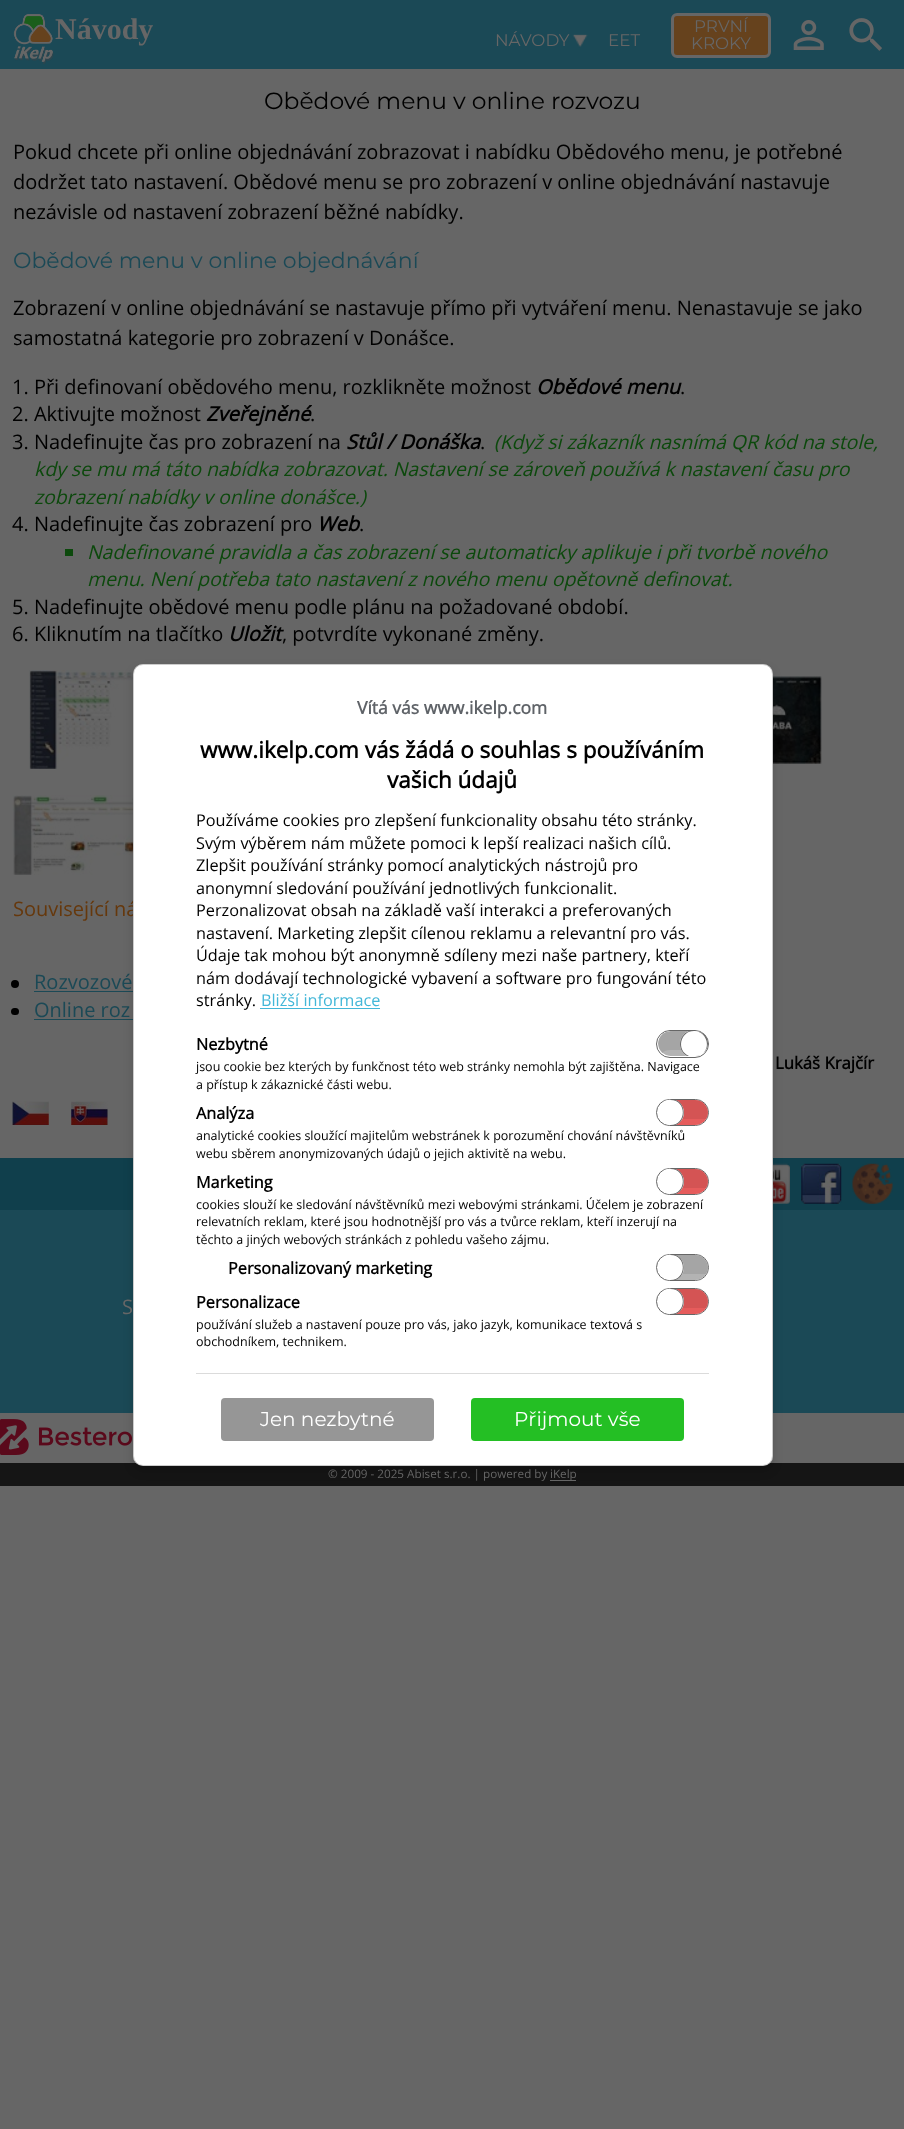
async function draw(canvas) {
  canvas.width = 904
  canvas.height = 2129
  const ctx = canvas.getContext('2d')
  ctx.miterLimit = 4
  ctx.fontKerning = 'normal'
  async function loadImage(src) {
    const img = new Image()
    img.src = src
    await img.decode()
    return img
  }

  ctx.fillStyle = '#666'
  ctx.fillRect(0, 0, 904, 2129)
  ctx.fillStyle = '#1b4956'
  ctx.fillRect(0, 0, 904, 69)
  ctx.drawImage(await loadImage('image0.png'), 13, 14, 41, 50)
  ctx.font = 'bold 30px Liberation Serif'
  ctx.fillStyle = '#666'
  ctx.fillText('Návody', 55, 39)
  ctx.drawImage(await loadImage('image1.png'), 572, 34, 16, 14)
  ctx.font = '100 16.75px Montserrat'
  ctx.fillText('NÁVODY', 495, 46)
  ctx.fillText('EET', 608, 46)
  ctx.fillStyle = '#66421d'
  ctx.beginPath()
  ctx.roundRect(672.5, 14.5, 97, 42, 4.5)
  ctx.fill()
  ctx.strokeStyle = '#666'
  ctx.lineWidth = 3
  ctx.stroke()
  ctx.fillStyle = '#666'
  ctx.fillText('PRVNÍ', 694, 32)
  ctx.fillText('KROKY', 691, 49)
  ctx.drawImage(await loadImage('image2.png'), 793, 20, 31, 30)
  ctx.drawImage(await loadImage('image3.png'), 849, 18, 34, 33)
  ctx.font = '100 23.4px Montserrat'
  ctx.fillStyle = '#000'
  ctx.fillText('Obědové menu v online rozvozu', 264, 109)
  ctx.font = '20px Open Sans'
  ctx.fillText('Pokud chcete při online objednávání zobrazovat i nabídku Obědového menu, je potřebné', 13, 159)
  ctx.fillText('dodržet tato nastavení. Obědové menu se pro zobrazení v online objednávání nastavuje', 13, 189)
  ctx.fillText('nezávisle od nastavení zobrazení běžné nabídky.', 13, 219)
  ctx.font = '100 22px Montserrat'
  ctx.fillStyle = '#1b4956'
  ctx.fillText('Obědové menu v online objednávání', 13, 268)
  ctx.font = '20px Open Sans'
  ctx.fillStyle = '#000'
  ctx.fillText('Zobrazení v online objednávání se nastavuje přímo při vytváření menu. Nenastavuje se jako', 13, 315)
  ctx.fillText('samostatná kategorie pro zobrazení v Donášce.', 13, 345)
  ctx.fillText('1. Při definovaní obědového menu, rozklikněte možnost', 12, 394)
  ctx.font = 'italic bold 20px Open Sans'
  ctx.fillText('Obědové menu', 536, 394)
  ctx.font = '20px Open Sans'
  ctx.fillText('.', 680, 394)
  ctx.fillText('2. Aktivujte možnost', 12, 421)
  ctx.font = 'italic bold 20px Open Sans'
  ctx.fillText('Zveřejněné', 206, 421)
  ctx.font = '20px Open Sans'
  ctx.fillText('.', 310, 421)
  ctx.fillText('3. Nadefinujte čas pro zobrazení na', 12, 449)
  ctx.font = 'italic bold 20px Open Sans'
  ctx.fillText('Stůl / Donáška', 346, 449)
  ctx.font = '20px Open Sans'
  ctx.fillText('.', 480, 449)
  ctx.font = 'italic 19.4px Open Sans'
  ctx.fillStyle = '#0c490c'
  ctx.fillText('(Když si zákazník nasnímá QR kód na stole,', 494, 449)
  ctx.fillText('kdy se mu má táto nabídka zobrazovat. Nastavení se zároveň používá k nastavení času pro', 34, 476)
  ctx.fillText('zobrazení nabídky v online donášce.)', 34, 504)
  ctx.font = '20px Open Sans'
  ctx.fillStyle = '#000'
  ctx.fillText('4. Nadefinujte čas zobrazení pro', 12, 531)
  ctx.font = 'italic bold 20px Open Sans'
  ctx.fillText('Web', 317, 531)
  ctx.font = '20px Open Sans'
  ctx.fillText('.', 359, 531)
  ctx.fillStyle = '#0c490c'
  ctx.fillRect(65, 549, 8, 7)
  ctx.font = 'italic 19.4px Open Sans'
  ctx.fillText('Nadefinované pravidla a čas zobrazení se automaticky aplikuje i při tvorbě nového', 87, 559)
  ctx.fillText('menu. Není potřeba tato nastavení z nového menu opětovně definovat.', 87, 586)
  ctx.font = '20px Open Sans'
  ctx.fillStyle = '#000'
  ctx.fillText('5. Nadefinujte obědové menu podle plánu na požadované období.', 12, 614)
  ctx.fillText('6. Kliknutím na tlačítko', 12, 641)
  ctx.font = 'italic bold 20px Open Sans'
  ctx.fillText('Uložit', 228, 641)
  ctx.font = '20px Open Sans'
  ctx.fillText(', potvrdíte vykonané změny.', 282, 641)
  ctx.drawImage(await loadImage('image4.png'), 29, 670, 105, 99)
  ctx.drawImage(await loadImage('image5.png'), 773, 676, 49, 88)
  ctx.drawImage(await loadImage('image6.png'), 12, 795, 121, 80)
  ctx.fillStyle = '#66380c'
  ctx.fillText('Související ná', 13, 916)
  ctx.fillStyle = '#000'
  ctx.beginPath()
  ctx.arc(15, 984, 4, 0, 2 * Math.PI)
  ctx.fill()
  ctx.fillStyle = '#1b4956'
  ctx.fillText('Rozvozové', 34, 989)
  ctx.fillRect(34, 991, 99, 1)
  ctx.fillStyle = '#000'
  ctx.beginPath()
  ctx.roundRect(11, 1008, 8, 7, 3.5)
  ctx.fill()
  ctx.fillStyle = '#1b4956'
  ctx.fillText('Online roz', 34, 1017)
  ctx.fillRect(34, 1019, 99, 1)
  ctx.font = 'bold 16.75px Open Sans'
  ctx.fillStyle = '#000'
  ctx.fillText('Lukáš Krajčír', 775, 1069)
  ctx.drawImage(await loadImage('image7.png'), 12, 1101, 37, 24)
  ctx.drawImage(await loadImage('image8.png'), 71, 1101, 37, 24)
  ctx.fillStyle = '#1b4956'
  ctx.fillRect(0, 1210, 904, 203)
  ctx.fillStyle = '#103f4c'
  ctx.fillRect(0, 1158, 904, 52)
  ctx.drawImage(await loadImage('image9.png'), 773, 1163, 17, 41)
  ctx.drawImage(await loadImage('image12.png'), 0, 1419, 132, 36)
  ctx.fillStyle = '#151515'
  ctx.fillRect(0, 1463, 904, 23)
  ctx.fillStyle = '#666'
  ctx.fillRect(550, 1480, 26, 1)
  ctx.fillStyle = '#00000029'
  ctx.filter = 'blur(5px)'
  ctx.beginPath()
  ctx.roundRect(133, 669, 640, 802, 10)
  ctx.fill()
  ctx.filter = 'none'
  ctx.fillStyle = '#fff'
  ctx.beginPath()
  ctx.roundRect(133, 664, 640, 802, 10)
  ctx.fill()
  ctx.beginPath()
  ctx.roundRect(133.5, 664.5, 639, 801, 9.5)
  ctx.strokeStyle = '#00000033'
  ctx.lineWidth = 1
  ctx.stroke()
  ctx.font = 'bold 17.5px Open Sans'
  ctx.fillStyle = '#5f6368'
  ctx.fillText('Vítá vás www.ikelp.com', 357, 714)
  ctx.font = 'bold 22.5px Open Sans'
  ctx.fillStyle = '#000'
  ctx.fillText('www.ikelp.com vás žádá o souhlas s používáním', 200, 758)
  ctx.fillText('vašich údajů', 387, 788)
  ctx.font = '16.25px Open Sans'
  ctx.fillText('Používáme cookies pro zlepšení funkcionality obsahu této stránky.', 196, 826)
  ctx.fillText('Svým výběrem nám můžete pomoci k lepší realizaci našich cílů.', 196, 849)
  ctx.fillText('Zlepšit používání stránky pomocí analytických nástrojů pro', 196, 871)
  ctx.fillText('anonymní sledování používání jednotlivých funkcionalit.', 196, 894)
  ctx.fillText('Perzonalizovat obsah na základě vaší interakci a preferovaných', 196, 916)
  ctx.fillText('nastavení. Marketing zlepšit cílenou reklamu a relevantní pro vás.', 196, 939)
  ctx.fillText('Údaje tak mohou být anonymně sdíleny mezi naše partnery, kteří', 196, 961)
  ctx.fillText('nám dodávají technologické vybavení a software pro fungování této', 196, 984)
  ctx.fillText('stránky.', 196, 1006)
  ctx.fillStyle = '#43b7d8'
  ctx.fillText('Bližší informace', 261, 1006)
  ctx.fillRect(260, 1008, 120, 1)
  ctx.font = 'bold 16.25px Open Sans'
  ctx.fillStyle = '#000'
  ctx.fillText('Nezbytné', 196, 1050)
  ctx.beginPath()
  ctx.roundRect(656.5, 1030.5, 52, 27, 13.5)
  ctx.strokeStyle = '#666'
  ctx.stroke()
  ctx.save()
  ctx.beginPath()
  ctx.roundRect(658, 1031, 50, 25, 12.5)
  ctx.clip()
  ctx.fillStyle = '#b3b3b3'
  ctx.beginPath()
  ctx.roundRect(658, 1031, 42, 25, [12.5, 0, 0, 12.5])
  ctx.fill()
  ctx.restore()
  ctx.fillStyle = '#00000014'
  ctx.beginPath()
  ctx.moveTo(670, 1050)
  ctx.bezierCurveTo(667, 1050, 664, 1051, 662, 1053)
  ctx.bezierCurveTo(660, 1051, 658, 1047, 658, 1044)
  ctx.bezierCurveTo(659, 1029, 673, 1031, 683, 1031)
  ctx.bezierCurveTo(688, 1031, 695, 1030, 700, 1032)
  ctx.lineTo(700, 1050)
  ctx.closePath()
  ctx.fill()
  ctx.save()
  ctx.beginPath()
  ctx.roundRect(658, 1031, 50, 25, 12.5)
  ctx.clip()
  ctx.fillStyle = '#fff'
  ctx.beginPath()
  ctx.arc(694, 1044, 14, 0, 2 * Math.PI)
  ctx.fill()
  ctx.restore()
  ctx.fillStyle = '#fff'
  ctx.beginPath()
  ctx.moveTo(694, 1032)
  ctx.bezierCurveTo(685, 1032, 680.5, 1039.5, 681.5, 1046)
  ctx.bezierCurveTo(678.5, 1033, 696, 1025, 704, 1036.5)
  ctx.bezierCurveTo(705.5, 1039, 706, 1041.5, 706, 1044)
  ctx.bezierCurveTo(705.5, 1038, 701.5, 1032, 694, 1032)
  ctx.closePath()
  ctx.fill()
  ctx.fillStyle = '#666'
  ctx.beginPath()
  ctx.moveTo(694, 1031)
  ctx.bezierCurveTo(680, 1031, 676, 1050.5, 689, 1056)
  ctx.lineTo(687, 1056)
  ctx.bezierCurveTo(677, 1050, 678, 1035.5, 689, 1031)
  ctx.closePath()
  ctx.moveTo(708, 1043.5)
  ctx.bezierCurveTo(708, 1048, 705.5, 1051.5, 702.5, 1054)
  ctx.bezierCurveTo(711.5, 1046.5, 706, 1031, 694, 1031)
  ctx.bezierCurveTo(702, 1031, 708, 1035.5, 708, 1043.5)
  ctx.closePath()
  ctx.fill('evenodd')
  ctx.font = '12.5px Open Sans'
  ctx.fillStyle = '#000'
  ctx.fillText('jsou cookie bez kterých by funkčnost této web stránky nemohla být zajištěna. Navigace', 196, 1071)
  ctx.fillText('a přístup k zákaznické části webu.', 196, 1089)
  ctx.font = 'bold 16.25px Open Sans'
  ctx.fillText('Analýza', 196, 1119)
  ctx.beginPath()
  ctx.roundRect(656.5, 1099.5, 52, 26, 13)
  ctx.stroke()
  ctx.save()
  ctx.beginPath()
  ctx.roundRect(658, 1100, 50, 25, 12.5)
  ctx.clip()
  ctx.fillStyle = '#e65c5c'
  ctx.beginPath()
  ctx.roundRect(676, 1100, 43, 25, [0, 12.5, 12.5, 0])
  ctx.fill()
  ctx.restore()
  ctx.fillStyle = '#00000014'
  ctx.beginPath()
  ctx.moveTo(676, 1119)
  ctx.lineTo(676, 1100)
  ctx.lineTo(695.5, 1100)
  ctx.bezierCurveTo(702.5, 1100, 708, 1105.5, 708, 1112.5)
  ctx.bezierCurveTo(708, 1115, 707.5, 1117, 706, 1119)
  ctx.closePath()
  ctx.fill()
  ctx.save()
  ctx.beginPath()
  ctx.roundRect(658, 1100, 50, 25, 12.5)
  ctx.clip()
  ctx.fillStyle = '#fff'
  ctx.beginPath()
  ctx.roundRect(656, 1099, 28, 27, 13.5)
  ctx.fill()
  ctx.restore()
  ctx.fillStyle = '#fff'
  ctx.beginPath()
  ctx.moveTo(670, 1101)
  ctx.bezierCurveTo(662, 1101, 658, 1107, 658, 1113)
  ctx.bezierCurveTo(658, 1109.5, 659, 1106, 661.5, 1103.5)
  ctx.bezierCurveTo(673, 1092.5, 690, 1108.5, 680, 1120.5)
  ctx.bezierCurveTo(684.5, 1113, 681, 1101, 670, 1101)
  ctx.closePath()
  ctx.fill()
  ctx.fillStyle = '#666'
  ctx.beginPath()
  ctx.moveTo(670.5, 1100)
  ctx.lineTo(675.5, 1100)
  ctx.bezierCurveTo(686.5, 1103.5, 686.5, 1121.5, 675.5, 1125)
  ctx.lineTo(670.5, 1125)
  ctx.bezierCurveTo(687, 1125, 687, 1100, 670.5, 1100)
  ctx.closePath()
  ctx.fill()
  ctx.font = '12.5px Open Sans'
  ctx.fillStyle = '#000'
  ctx.fillText('analytické cookies sloužící majitelům webstránek k porozumění chování návštěvníků', 196, 1140)
  ctx.fillText('webu sběrem anonymizovaných údajů o jejich aktivitě na webu.', 196, 1158)
  ctx.font = 'bold 16.25px Open Sans'
  ctx.fillText('Marketing', 196, 1188)
  ctx.beginPath()
  ctx.roundRect(656.5, 1168.5, 52, 26, 13)
  ctx.stroke()
  ctx.save()
  ctx.beginPath()
  ctx.roundRect(658, 1169, 50, 25, 12.5)
  ctx.clip()
  ctx.fillStyle = '#e65c5c'
  ctx.beginPath()
  ctx.roundRect(676, 1169, 43, 25, [0, 12.5, 12.5, 0])
  ctx.fill()
  ctx.restore()
  ctx.fillStyle = '#00000014'
  ctx.beginPath()
  ctx.moveTo(676, 1188)
  ctx.lineTo(676, 1169)
  ctx.lineTo(695.5, 1169)
  ctx.bezierCurveTo(702.5, 1169, 708, 1174.5, 708, 1181.5)
  ctx.bezierCurveTo(708, 1184, 707.5, 1186, 706, 1188)
  ctx.closePath()
  ctx.fill()
  ctx.save()
  ctx.beginPath()
  ctx.roundRect(658, 1169, 50, 25, 12.5)
  ctx.clip()
  ctx.fillStyle = '#fff'
  ctx.beginPath()
  ctx.roundRect(656, 1168, 28, 27, 13.5)
  ctx.fill()
  ctx.restore()
  ctx.fillStyle = '#fff'
  ctx.beginPath()
  ctx.moveTo(670, 1170)
  ctx.bezierCurveTo(662, 1170, 658, 1176, 658, 1182)
  ctx.bezierCurveTo(658, 1178.5, 659, 1175, 661.5, 1172.5)
  ctx.bezierCurveTo(673, 1161.5, 690, 1177.5, 680, 1189.5)
  ctx.bezierCurveTo(684.5, 1182, 681, 1170, 670, 1170)
  ctx.closePath()
  ctx.fill()
  ctx.fillStyle = '#666'
  ctx.beginPath()
  ctx.moveTo(670.5, 1169)
  ctx.lineTo(675.5, 1169)
  ctx.bezierCurveTo(686.5, 1172.5, 686.5, 1190.5, 675.5, 1194)
  ctx.lineTo(670.5, 1194)
  ctx.bezierCurveTo(687, 1194, 687, 1169, 670.5, 1169)
  ctx.closePath()
  ctx.fill()
  ctx.font = '12.5px Open Sans'
  ctx.fillStyle = '#000'
  ctx.fillText('cookies slouží ke sledování návštěvníků mezi webovými stránkami. Účelem je zobrazení', 196, 1209)
  ctx.fillText('relevatních reklam, které jsou hodnotnější pro vás a tvůrce reklam, kteří inzerují na', 196, 1226)
  ctx.fillText('těchto a jiných webových stránkách z pohledu vašeho zájmu.', 196, 1244)
  ctx.font = 'bold 16.25px Open Sans'
  ctx.fillText('Personalizovaný marketing', 228, 1274)
  ctx.beginPath()
  ctx.roundRect(656.5, 1254.5, 52, 26, 13)
  ctx.stroke()
  ctx.save()
  ctx.beginPath()
  ctx.roundRect(658, 1255, 50, 25, 12.5)
  ctx.clip()
  ctx.fillStyle = '#b3b3b3'
  ctx.beginPath()
  ctx.roundRect(676, 1255, 43, 25, [0, 12.5, 12.5, 0])
  ctx.fill()
  ctx.restore()
  ctx.fillStyle = '#00000014'
  ctx.beginPath()
  ctx.moveTo(676, 1274)
  ctx.lineTo(676, 1255)
  ctx.lineTo(695.5, 1255)
  ctx.bezierCurveTo(702.5, 1255, 708, 1260.5, 708, 1267.5)
  ctx.bezierCurveTo(708, 1270, 707.5, 1272, 706, 1274)
  ctx.closePath()
  ctx.fill()
  ctx.save()
  ctx.beginPath()
  ctx.roundRect(658, 1255, 50, 25, 12.5)
  ctx.clip()
  ctx.fillStyle = '#fff'
  ctx.beginPath()
  ctx.roundRect(656, 1254, 28, 27, 13.5)
  ctx.fill()
  ctx.restore()
  ctx.fillStyle = '#fff'
  ctx.beginPath()
  ctx.moveTo(670, 1256)
  ctx.bezierCurveTo(662, 1256, 658, 1262, 658, 1268)
  ctx.bezierCurveTo(658, 1264.5, 659, 1261, 661.5, 1258.5)
  ctx.bezierCurveTo(673, 1247.5, 690, 1263.5, 680, 1275.5)
  ctx.bezierCurveTo(684.5, 1268, 681, 1256, 670, 1256)
  ctx.closePath()
  ctx.fill()
  ctx.fillStyle = '#666'
  ctx.beginPath()
  ctx.moveTo(670.5, 1255)
  ctx.lineTo(675.5, 1255)
  ctx.bezierCurveTo(686.5, 1258.5, 686.5, 1276.5, 675.5, 1280)
  ctx.lineTo(670.5, 1280)
  ctx.bezierCurveTo(687, 1280, 687, 1255, 670.5, 1255)
  ctx.closePath()
  ctx.fill()
  ctx.fillStyle = '#000'
  ctx.fillText('Personalizace', 196, 1308)
  ctx.beginPath()
  ctx.roundRect(656.5, 1288.5, 52, 26, 13)
  ctx.stroke()
  ctx.save()
  ctx.beginPath()
  ctx.roundRect(658, 1289, 50, 25, 12.5)
  ctx.clip()
  ctx.fillStyle = '#e65c5c'
  ctx.beginPath()
  ctx.roundRect(676, 1289, 43, 25, [0, 12.5, 12.5, 0])
  ctx.fill()
  ctx.restore()
  ctx.fillStyle = '#00000014'
  ctx.beginPath()
  ctx.moveTo(676, 1308)
  ctx.lineTo(676, 1289)
  ctx.lineTo(695.5, 1289)
  ctx.bezierCurveTo(702.5, 1289, 708, 1294.5, 708, 1301.5)
  ctx.bezierCurveTo(708, 1304, 707.5, 1306, 706, 1308)
  ctx.closePath()
  ctx.fill()
  ctx.save()
  ctx.beginPath()
  ctx.roundRect(658, 1289, 50, 25, 12.5)
  ctx.clip()
  ctx.fillStyle = '#fff'
  ctx.beginPath()
  ctx.roundRect(656, 1288, 28, 27, 13.5)
  ctx.fill()
  ctx.restore()
  ctx.fillStyle = '#fff'
  ctx.beginPath()
  ctx.moveTo(670, 1290)
  ctx.bezierCurveTo(662, 1290, 658, 1296, 658, 1302)
  ctx.bezierCurveTo(658, 1298.5, 659, 1295, 661.5, 1292.5)
  ctx.bezierCurveTo(673, 1281.5, 690, 1297.5, 680, 1309.5)
  ctx.bezierCurveTo(684.5, 1302, 681, 1290, 670, 1290)
  ctx.closePath()
  ctx.fill()
  ctx.fillStyle = '#666'
  ctx.beginPath()
  ctx.moveTo(670.5, 1289)
  ctx.lineTo(675.5, 1289)
  ctx.bezierCurveTo(686.5, 1292.5, 686.5, 1310.5, 675.5, 1314)
  ctx.lineTo(670.5, 1314)
  ctx.bezierCurveTo(687, 1314, 687, 1289, 670.5, 1289)
  ctx.closePath()
  ctx.fill()
  ctx.font = '12.5px Open Sans'
  ctx.fillStyle = '#000'
  ctx.fillText('používání služeb a nastavení pouze pro vás, jako jazyk, komunikace textová s', 196, 1329)
  ctx.fillText('obchodníkem, technikem.', 196, 1346)
  ctx.fillStyle = '#dbdbdb'
  ctx.fillRect(196, 1373, 513, 1)
  ctx.fillStyle = '#969696'
  ctx.beginPath()
  ctx.roundRect(221, 1398, 213, 43, 4)
  ctx.fill()
  ctx.font = '100 20px Montserrat'
  ctx.fillStyle = '#fff'
  ctx.fillText('Jen nezbytné', 260, 1426)
  ctx.fillStyle = '#24bf24'
  ctx.beginPath()
  ctx.roundRect(471, 1398, 213, 43, 4)
  ctx.fill()
  ctx.fillStyle = '#fff'
  ctx.fillText('Přijmout vše', 514, 1426)
  ctx.drawImage(await loadImage('image10.png'), 801, 1163, 41, 41)
  ctx.drawImage(await loadImage('image11.png'), 852, 1163, 41, 41)
  ctx.font = '20px Open Sans'
  ctx.fillStyle = '#666'
  ctx.fillText('S', 122, 1314)
  ctx.font = '11.7px Open Sans'
  ctx.fillText('© 2009 - 2025 Abiset s.r.o. | powered by', 328, 1478)
  ctx.fillText('iKelp', 550, 1478)
}

draw(document.querySelector('canvas'))
